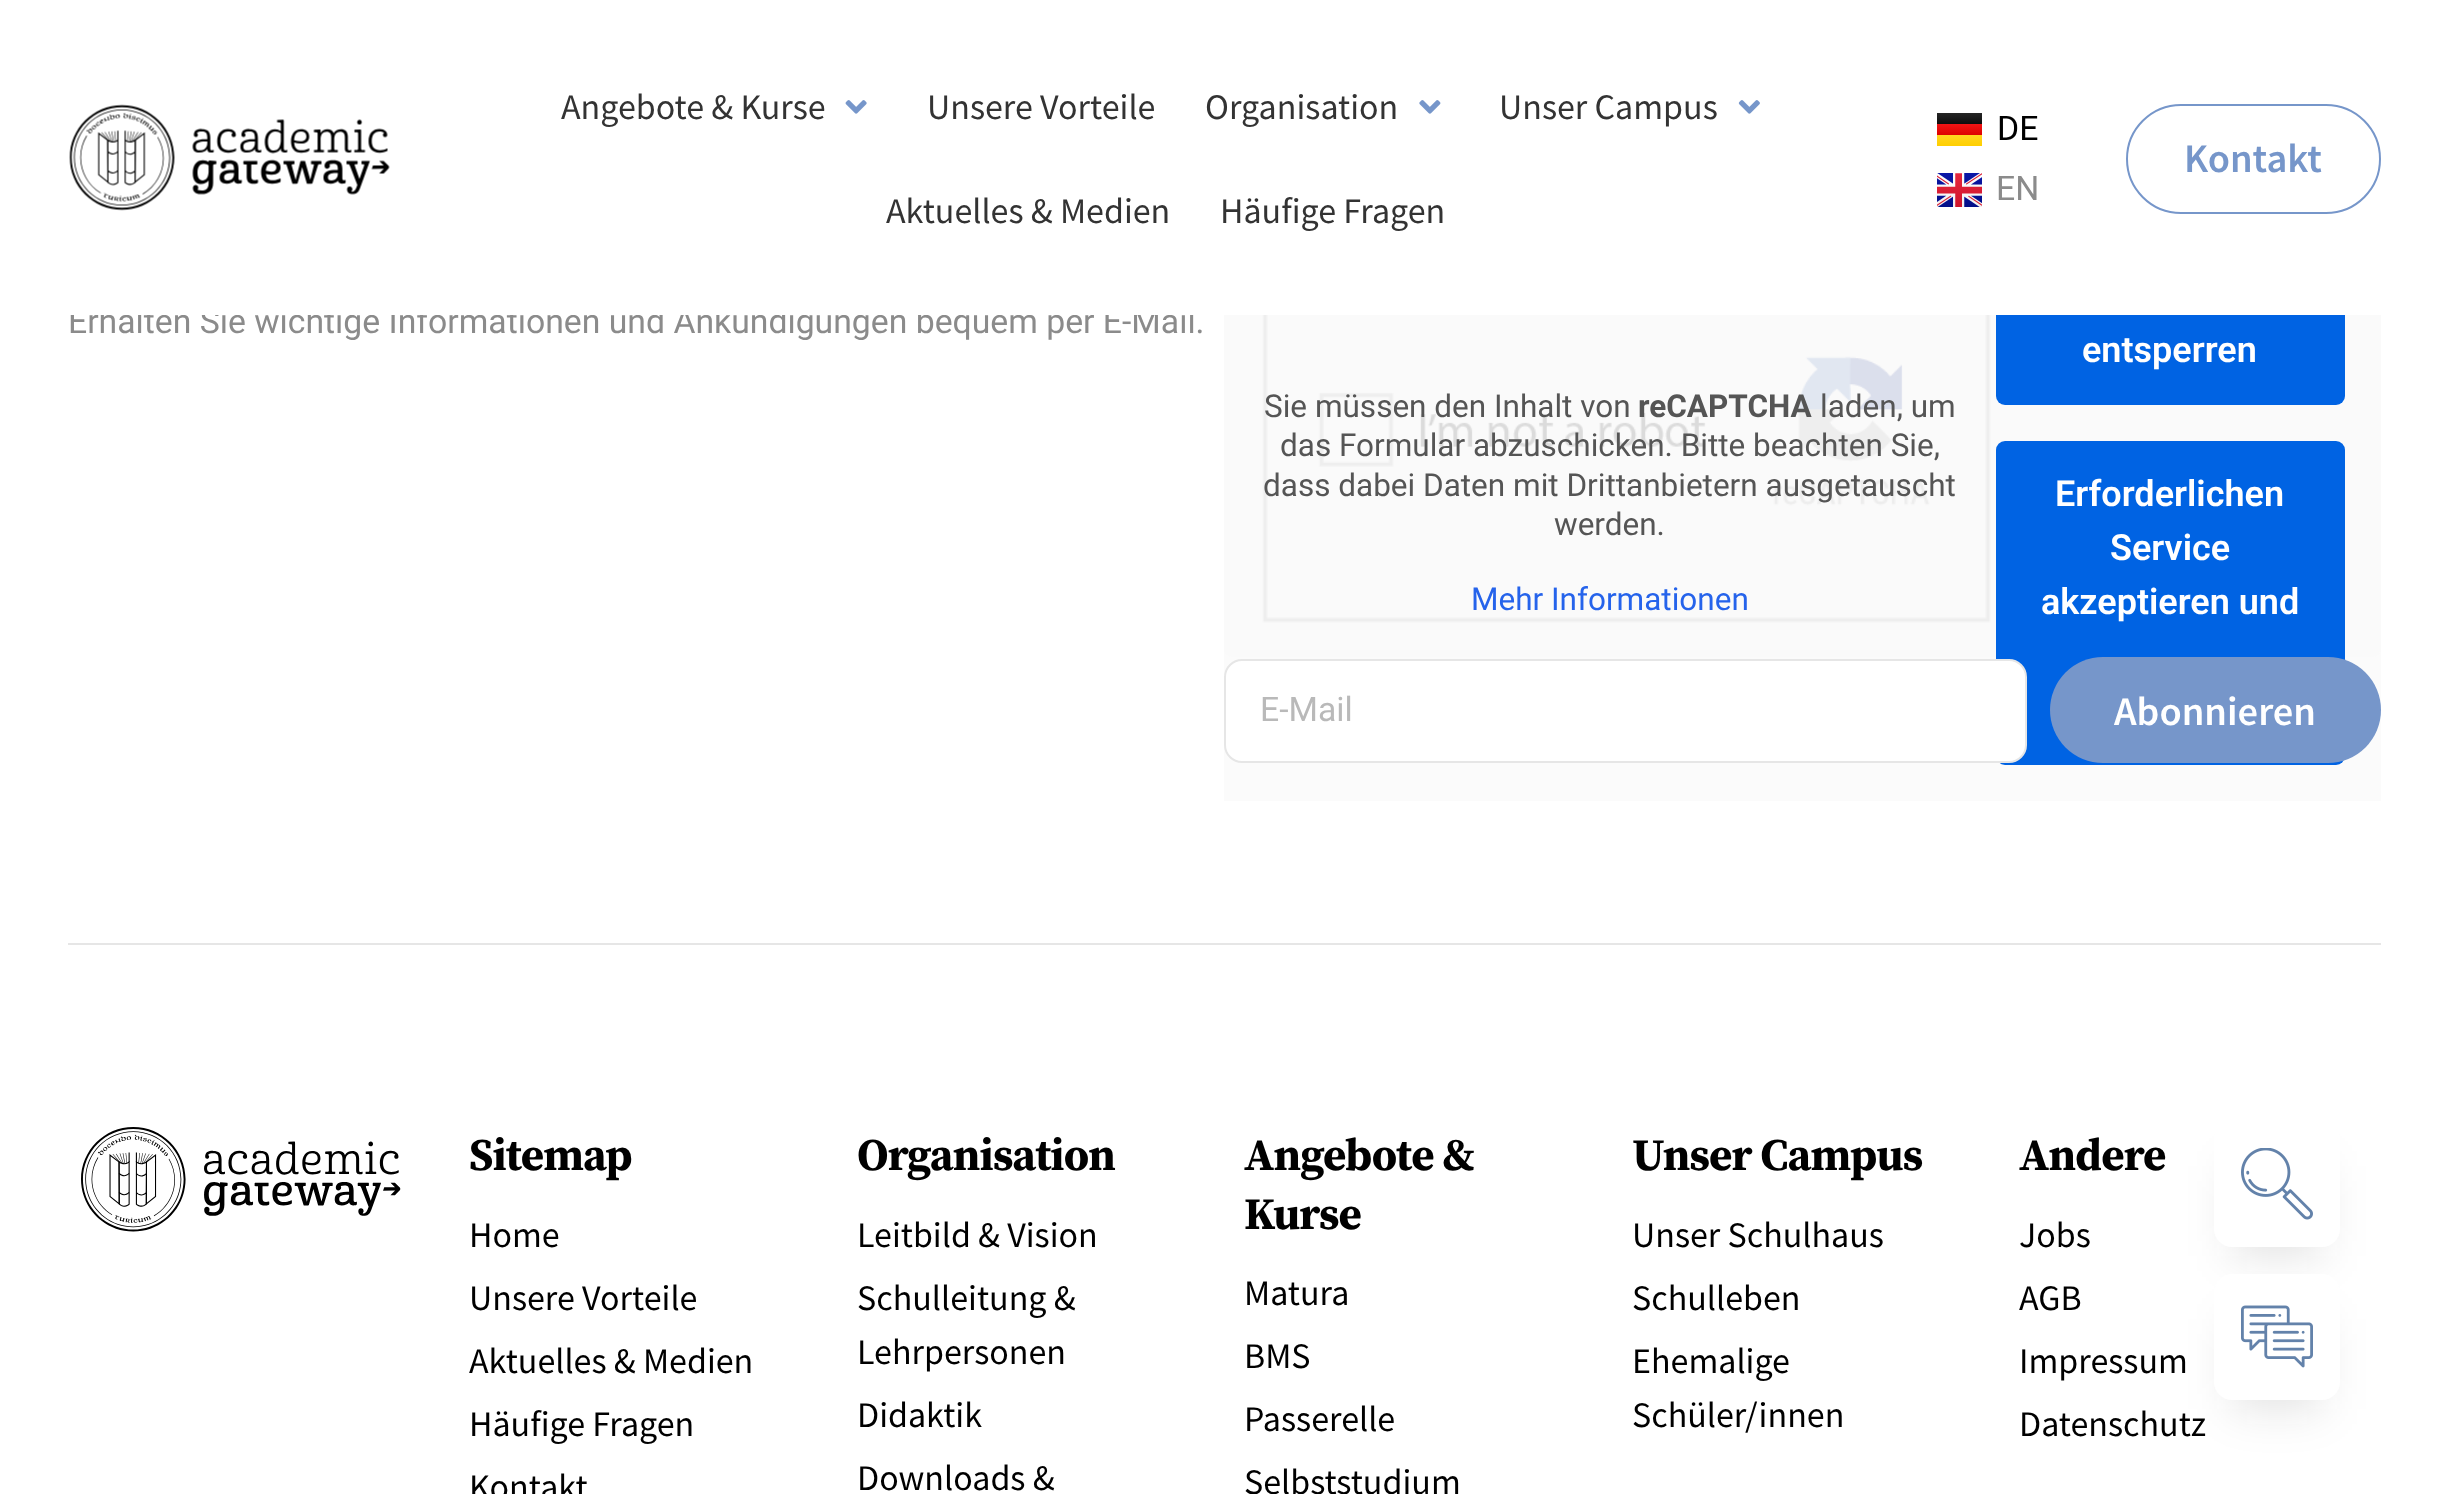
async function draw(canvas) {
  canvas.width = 2446
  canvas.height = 1494
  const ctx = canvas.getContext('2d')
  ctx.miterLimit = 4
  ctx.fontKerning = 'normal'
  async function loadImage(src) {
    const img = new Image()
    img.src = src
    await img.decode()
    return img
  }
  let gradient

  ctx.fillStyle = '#fff'
  ctx.fillRect(0, 0, 2446, 1494)
  ctx.fillStyle = '#fbfbfb'
  ctx.fillRect(1224, 648, 1157, 153)
  ctx.font = '33.75px Roboto'
  ctx.fillStyle = '#8b8b8b'
  ctx.fillText('Erhalten Sie wichtige Informationen und Ankündigungen bequem per E-Mail.', 68, 333)
  ctx.fillStyle = '#fafafa'
  ctx.beginPath()
  ctx.roundRect(1224, 207, 1157, 450, 9)
  ctx.fill()
  ctx.fillStyle = '#0063e3'
  ctx.beginPath()
  ctx.roundRect(1996, 243, 349, 162, 9)
  ctx.fill()
  ctx.fillStyle = '#fff'
  ctx.fillRect(70, 207, 2311, 108)
  ctx.drawImage(await loadImage('image0.png'), 69, 104, 321, 107)
  ctx.font = '36px Source Sans Pro'
  ctx.fillStyle = '#333'
  ctx.fillText('Angebote & Kurse', 561, 119)
  ctx.drawImage(await loadImage('image1.png'), 845, 100, 22, 14)
  ctx.fillText('Unsere Vorteile', 927, 119)
  ctx.fillText('Organisation', 1205, 119)
  ctx.drawImage(await loadImage('image2.png'), 1419, 100, 22, 14)
  ctx.fillText('Unser Campus', 1499, 119)
  ctx.drawImage(await loadImage('image3.png'), 1738, 100, 22, 14)
  ctx.fillText('Aktuelles & Medien', 886, 223)
  ctx.fillText('Häufige Fragen', 1220, 223)
  gradient = ctx.createLinearGradient(1961, 113, 1961, 124)
  gradient.addColorStop(0, '#262626')
  gradient.addColorStop(1, '#0d0d0d')
  ctx.fillStyle = gradient
  ctx.fillRect(1937, 113, 45, 11)
  gradient = ctx.createLinearGradient(1961, 124, 1961, 135)
  gradient.addColorStop(0, '#f01515')
  gradient.addColorStop(1, '#de0000')
  ctx.fillStyle = gradient
  ctx.fillRect(1937, 124, 45, 11)
  gradient = ctx.createLinearGradient(1961, 135, 1961, 146)
  gradient.addColorStop(0, '#ffd521')
  gradient.addColorStop(1, '#ffcf00')
  ctx.fillStyle = gradient
  ctx.fillRect(1937, 135, 45, 11)
  ctx.font = '33.75px Roboto'
  ctx.fillStyle = '#000'
  ctx.fillText('DE', 1997, 140)
  ctx.drawImage(await loadImage('image4.png'), 1937, 173, 45, 34)
  ctx.fillStyle = '#8b8b8b'
  ctx.fillText('EN', 1996, 200)
  ctx.beginPath()
  ctx.roundRect(2127, 105, 253, 108, 54)
  ctx.strokeStyle = '#7696ca'
  ctx.lineWidth = 2
  ctx.stroke()
  ctx.font = '600 40.5px Source Sans Pro'
  ctx.fillStyle = '#7696ca'
  ctx.fillText('Kontakt', 2184, 172)
  ctx.drawImage(await loadImage('image5.png'), 1262, 315, 729, 308)
  ctx.font = '31.5px Roboto'
  ctx.fillStyle = '#555'
  ctx.fillText('Sie müssen den Inhalt von', 1264, 417)
  ctx.font = 'bold 31.5px Roboto'
  ctx.fillText('reCAPTCHA', 1638, 417)
  ctx.font = '31.5px Roboto'
  ctx.fillText('laden, um', 1820, 417)
  ctx.fillText('das Formular abzuschicken. Bitte beachten Sie,', 1280, 456)
  ctx.fillText('dass dabei Daten mit Drittanbietern ausgetauscht', 1263, 496)
  ctx.fillText('werden.', 1554, 535)
  ctx.fillStyle = '#2563eb'
  ctx.fillText('Mehr Informationen', 1471, 610)
  ctx.font = '600 36px Roboto'
  ctx.fillStyle = '#fff'
  ctx.fillText('entsperren', 2082, 362)
  ctx.fillStyle = '#0063e3'
  ctx.beginPath()
  ctx.roundRect(1996, 441, 349, 324, 9)
  ctx.fill()
  ctx.fillStyle = '#fff'
  ctx.fillText('Erforderlichen', 2055, 506)
  ctx.fillText('Service', 2110, 560)
  ctx.fillText('akzeptieren und', 2041, 614)
  ctx.beginPath()
  ctx.roundRect(1225, 660, 801, 102, 17)
  ctx.fill()
  ctx.strokeStyle = '#e6e6e6'
  ctx.stroke()
  ctx.font = '33.75px Roboto'
  ctx.fillStyle = '#b9b9b9'
  ctx.fillText('E-Mail', 1260, 721)
  ctx.fillStyle = '#7696ca'
  ctx.beginPath()
  ctx.roundRect(2050, 657, 331, 106, 53)
  ctx.fill()
  ctx.font = '600 40.5px Source Sans Pro'
  ctx.fillStyle = '#fff'
  ctx.fillText('Abonnieren', 2114, 725)
  ctx.fillStyle = '#e6e6e6'
  ctx.fillRect(68, 943, 2313, 2)
  ctx.drawImage(await loadImage('image6.png'), 81, 1127, 320, 105)
  ctx.letterSpacing = '-0.9px'
  ctx.font = 'bold 45px Source Serif Pro'
  ctx.fillStyle = '#000'
  ctx.fillText('Sitemap', 469, 1170)
  ctx.letterSpacing = '0px'
  ctx.font = '36px Source Sans Pro'
  ctx.fillText('Home', 469, 1247)
  ctx.fillText('Unsere Vorteile', 469, 1310)
  ctx.fillText('Aktuelles & Medien', 469, 1373)
  ctx.fillText('Häufige Fragen', 469, 1436)
  ctx.fillText('Kontakt', 469, 1499)
  ctx.letterSpacing = '-0.9px'
  ctx.font = 'bold 45px Source Serif Pro'
  ctx.fillText('Organisation', 857, 1170)
  ctx.letterSpacing = '0px'
  ctx.font = '36px Source Sans Pro'
  ctx.fillText('Leitbild & Vision', 857, 1247)
  ctx.fillText('Schulleitung &', 857, 1310)
  ctx.fillText('Lehrpersonen', 857, 1364)
  ctx.fillText('Didaktik', 857, 1427)
  ctx.fillText('Downloads &', 857, 1490)
  ctx.letterSpacing = '-0.9px'
  ctx.font = 'bold 45px Source Serif Pro'
  ctx.fillText('Angebote &', 1244, 1170)
  ctx.fillText('Kurse', 1244, 1229)
  ctx.letterSpacing = '0px'
  ctx.font = '36px Source Sans Pro'
  ctx.fillText('Matura', 1244, 1305)
  ctx.fillText('BMS', 1244, 1368)
  ctx.fillText('Passerelle', 1244, 1431)
  ctx.fillText('Selbststudium', 1244, 1494)
  ctx.letterSpacing = '-0.9px'
  ctx.font = 'bold 45px Source Serif Pro'
  ctx.fillText('Unser Campus', 1632, 1170)
  ctx.letterSpacing = '0px'
  ctx.font = '36px Source Sans Pro'
  ctx.fillText('Unser Schulhaus', 1632, 1247)
  ctx.fillText('Schulleben', 1632, 1310)
  ctx.fillText('Ehemalige', 1632, 1373)
  ctx.fillText('Schüler/innen', 1632, 1427)
  ctx.letterSpacing = '-0.9px'
  ctx.font = 'bold 45px Source Serif Pro'
  ctx.fillText('Andere', 2019, 1170)
  ctx.letterSpacing = '0px'
  ctx.font = '36px Source Sans Pro'
  ctx.fillText('Jobs', 2019, 1247)
  ctx.fillText('AGB', 2019, 1310)
  ctx.fillText('Impressum', 2019, 1373)
  ctx.fillText('Datenschutz', 2019, 1436)
  ctx.fillStyle = '#1212121f'
  ctx.filter = 'blur(22.5px)'
  ctx.beginPath()
  ctx.rect(2232, 1166, 90, 90)
  ctx.fill()
  ctx.filter = 'none'
  ctx.fillStyle = '#fff'
  ctx.beginPath()
  ctx.roundRect(2214, 1121, 126, 126, 18)
  ctx.fill()
  ctx.drawImage(await loadImage('image7.png'), 2241, 1148, 72, 72)
  ctx.fillStyle = '#1212121f'
  ctx.filter = 'blur(22.5px)'
  ctx.beginPath()
  ctx.rect(2232, 1319, 90, 90)
  ctx.fill()
  ctx.filter = 'none'
  ctx.fillStyle = '#fff'
  ctx.beginPath()
  ctx.roundRect(2214, 1274, 126, 126, 18)
  ctx.fill()
  ctx.drawImage(await loadImage('image8.png'), 2241, 1305, 72, 63)
}

draw(document.querySelector('canvas'))
